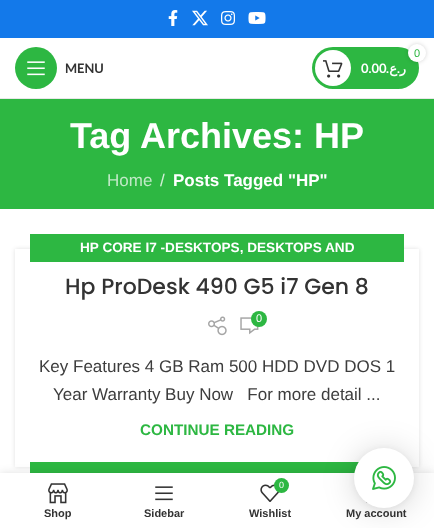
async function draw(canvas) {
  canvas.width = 434
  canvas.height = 528
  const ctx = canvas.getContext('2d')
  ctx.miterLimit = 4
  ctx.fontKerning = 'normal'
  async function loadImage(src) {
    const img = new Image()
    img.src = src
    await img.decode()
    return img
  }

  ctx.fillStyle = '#fff'
  ctx.fillRect(0, 0, 434, 528)
  ctx.fillStyle = '#1379ea'
  ctx.fillRect(0, 0, 434, 38)
  ctx.drawImage(await loadImage('image0.png'), 168, 10, 10, 16)
  ctx.drawImage(await loadImage('image1.png'), 192, 10, 16, 16)
  ctx.drawImage(await loadImage('image2.png'), 221, 11, 14, 14)
  ctx.drawImage(await loadImage('image3.png'), 248, 12, 18, 12)
  ctx.fillStyle = '#e8e8e8'
  ctx.fillRect(0, 98, 434, 1)
  ctx.fillStyle = '#2db742'
  ctx.beginPath()
  ctx.arc(36, 68, 21, 0, 2 * Math.PI)
  ctx.fill()
  ctx.drawImage(await loadImage('image4.png'), 27, 61, 18, 15)
  ctx.font = 'bold 13px Lato'
  ctx.fillStyle = '#333'
  ctx.fillText('MENU', 65, 73)
  ctx.fillStyle = '#2db742'
  ctx.beginPath()
  ctx.roundRect(312, 47, 107, 42, 21)
  ctx.fill()
  ctx.fillStyle = '#fff'
  ctx.beginPath()
  ctx.arc(333, 68, 18, 0, 2 * Math.PI)
  ctx.fill()
  ctx.fillStyle = '#0000002b'
  ctx.filter = 'blur(2px)'
  ctx.beginPath()
  ctx.roundRect(408, 44, 18, 18, 9)
  ctx.fill()
  ctx.filter = 'none'
  ctx.fillStyle = '#fff'
  ctx.beginPath()
  ctx.arc(417, 53, 9, 0, 2 * Math.PI)
  ctx.fill()
  ctx.font = '11px Liberation Sans'
  ctx.fillStyle = '#2db742'
  ctx.fillText('0', 414, 57)
  ctx.drawImage(await loadImage('image5.png'), 323, 60, 20, 18)
  ctx.font = 'bold 13px Lato'
  ctx.fillStyle = '#fff'
  ctx.fillText('0.00', 361, 73)
  ctx.direction = 'rtl'
  ctx.fillText('.', 389, 73)
  ctx.font = 'bold 13px DejaVu Sans'
  ctx.fillText('ع', 397, 73)
  ctx.font = 'bold 13px Lato'
  ctx.fillText('.', 400, 73)
  ctx.font = 'bold 13px DejaVu Sans'
  ctx.fillText('ر', 406, 73)
  ctx.fillStyle = '#2db742'
  ctx.fillRect(0, 99, 434, 110)
  ctx.direction = 'ltr'
  ctx.font = 'bold 36px Liberation Sans'
  ctx.fillStyle = '#fff'
  ctx.fillText('Tag Archives: HP', 70, 148)
  ctx.font = '17px Liberation Sans'
  ctx.fillStyle = '#c0e9c6'
  ctx.fillText('Home', 107, 186)
  ctx.fillStyle = '#d5f1d9'
  ctx.fillText('/', 160, 186)
  ctx.font = 'bold 17px Liberation Sans'
  ctx.fillStyle = '#fff'
  ctx.fillText('Posts Tagged "HP"', 173, 186)
  ctx.save()
  ctx.beginPath()
  ctx.moveTo(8, 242)
  ctx.lineTo(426, 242)
  ctx.lineTo(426, 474)
  ctx.lineTo(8, 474)
  ctx.closePath()
  ctx.moveTo(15, 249)
  ctx.lineTo(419, 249)
  ctx.lineTo(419, 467)
  ctx.lineTo(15, 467)
  ctx.closePath()
  ctx.clip('evenodd')
  ctx.fillStyle = '#0000001f'
  ctx.filter = 'blur(2px)'
  ctx.beginPath()
  ctx.rect(15, 249, 404, 218)
  ctx.fill()
  ctx.filter = 'none'
  ctx.restore()
  ctx.fillStyle = '#2db742'
  ctx.fillRect(30, 234, 374, 28)
  ctx.font = 'bold 13.6px Liberation Sans'
  ctx.fillStyle = '#fff'
  ctx.fillText('HP CORE I7 -DESKTOPS, DESKTOPS AND', 80, 252)
  ctx.font = '500 22px Poppins'
  ctx.fillStyle = '#333'
  ctx.fillText('Hp ProDesk 490 G5 i7 Gen 8', 65, 294)
  ctx.drawImage(await loadImage('image6.png'), 208, 316, 19, 20)
  ctx.drawImage(await loadImage('image7.png'), 240, 317, 19, 18)
  ctx.fillStyle = '#2db742'
  ctx.beginPath()
  ctx.arc(259, 319, 8, 0, 2 * Math.PI)
  ctx.fill()
  ctx.font = '11px Liberation Sans'
  ctx.fillStyle = '#fff'
  ctx.fillText('0', 256, 322)
  ctx.font = '17px Liberation Sans'
  ctx.fillStyle = '#3d3d3d'
  ctx.fillText('Key Features 4 GB Ram 500 HDD DVD DOS 1', 39, 372)
  ctx.fillText('Year Warranty Buy Now   For more detail ...', 53, 400)
  ctx.font = 'bold 15.25px Liberation Sans'
  ctx.fillStyle = '#2db742'
  ctx.fillText('CONTINUE READING', 140, 435)
  ctx.fillRect(30, 462, 329, 11)
  ctx.fillStyle = '#0000001f'
  ctx.filter = 'blur(4.5px)'
  ctx.beginPath()
  ctx.rect(0, 473, 434, 55)
  ctx.fill()
  ctx.filter = 'none'
  ctx.fillStyle = '#fff'
  ctx.fillRect(0, 473, 434, 55)
  ctx.drawImage(await loadImage('image12.png'), 366, 502, 2, 1)
  ctx.fillStyle = '#00000029'
  ctx.filter = 'blur(16px)'
  ctx.beginPath()
  ctx.roundRect(354, 450, 60, 60, 30)
  ctx.fill()
  ctx.filter = 'none'
  ctx.fillStyle = '#0000000f'
  ctx.filter = 'blur(3px)'
  ctx.beginPath()
  ctx.roundRect(354, 449, 60, 60, 30)
  ctx.fill()
  ctx.filter = 'none'
  ctx.fillStyle = '#fff'
  ctx.beginPath()
  ctx.arc(384, 478, 30, 0, 2 * Math.PI)
  ctx.fill()
  ctx.drawImage(await loadImage('image8.png'), 372, 466, 24, 24)
  ctx.drawImage(await loadImage('image9.png'), 48, 483, 20, 21)
  ctx.font = 'bold 11px Liberation Sans'
  ctx.fillStyle = '#333'
  ctx.fillText('Shop', 44, 517)
  ctx.drawImage(await loadImage('image10.png'), 155, 486, 18, 15)
  ctx.fillText('Sidebar', 144, 517)
  ctx.drawImage(await loadImage('image11.png'), 260, 484, 20, 18)
  ctx.fillStyle = '#2db742'
  ctx.beginPath()
  ctx.arc(281.5, 485.5, 7.5, 0, 2 * Math.PI)
  ctx.fill()
  ctx.font = '9px Liberation Sans'
  ctx.fillStyle = '#fff'
  ctx.fillText('0', 279, 488)
  ctx.font = 'bold 11px Liberation Sans'
  ctx.fillStyle = '#333'
  ctx.fillText('Wishlist', 249, 517)
  ctx.fillText('My account', 346, 517)
}

draw(document.querySelector('canvas'))
